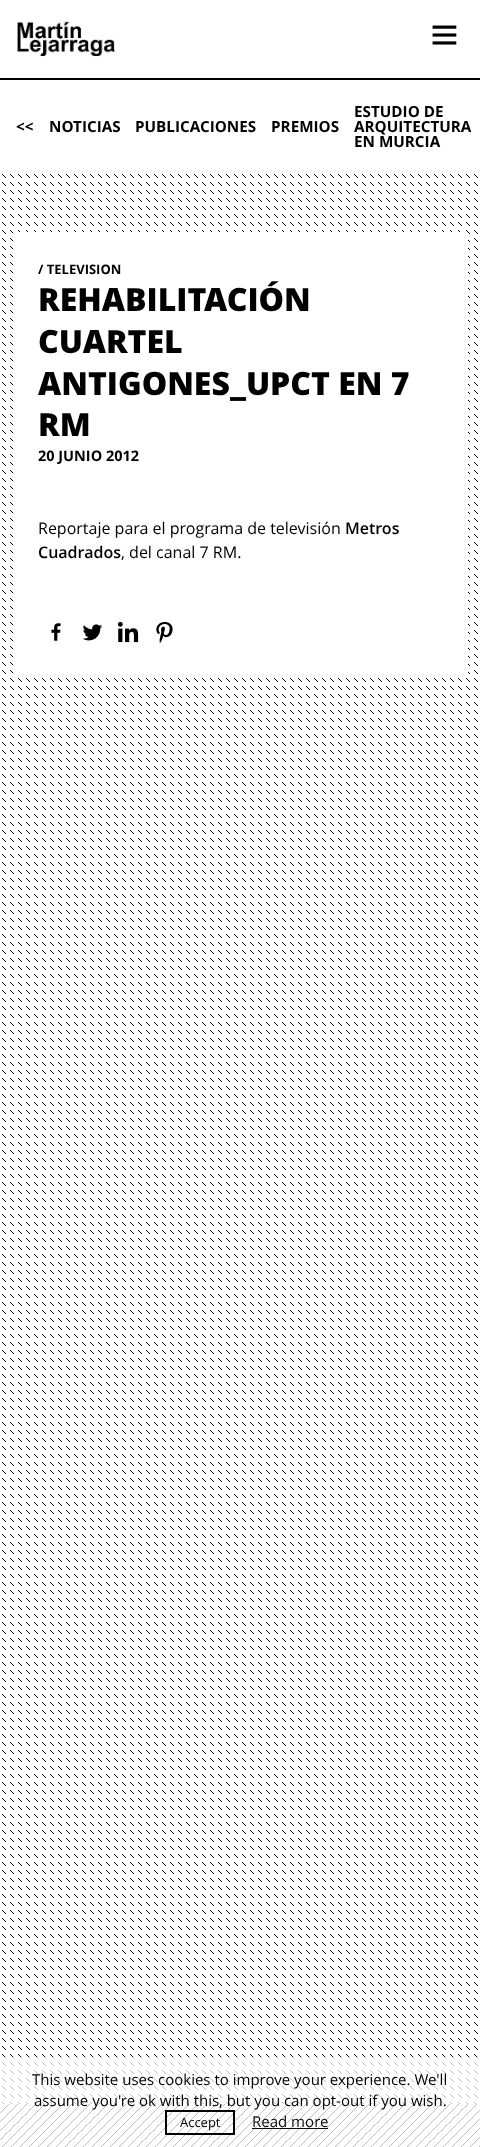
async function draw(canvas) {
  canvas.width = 480
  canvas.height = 2147
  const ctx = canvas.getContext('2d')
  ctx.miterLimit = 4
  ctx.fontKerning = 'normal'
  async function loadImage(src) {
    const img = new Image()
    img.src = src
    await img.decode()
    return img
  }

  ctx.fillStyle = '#fff'
  ctx.fillRect(0, 0, 480, 2147)
  ctx.drawImage(await loadImage('image0.png'), 17, 21, 98, 36)
  ctx.drawImage(await loadImage('image1.png'), 432, 25, 25, 20)
  ctx.fillStyle = '#000'
  ctx.fillRect(0, 78, 480, 2)
  ctx.font = 'bold 15.25px Open Sans'
  ctx.fillText('<<', 16, 132)
  ctx.fillText('NOTICIAS', 49, 132)
  ctx.fillText('PUBLICACIONES', 135, 132)
  ctx.fillText('PREMIOS', 271, 132)
  ctx.fillText('ESTUDIO DE', 354, 117)
  ctx.fillText('ARQUITECTURA', 354, 132)
  ctx.fillText('EN MURCIA', 354, 147)
  ctx.drawImage(await loadImage('image2.png'), 2, 174, 476, 1930)
  ctx.fillStyle = '#fff'
  ctx.fillRect(13, 232, 455, 442)
  ctx.font = 'bold 13px Open Sans'
  ctx.fillStyle = '#000'
  ctx.fillText('/ TELEVISION', 38, 274)
  ctx.font = '800 32px Open Sans'
  ctx.fillText('REHABILITACIÓN', 38, 311)
  ctx.fillText('CUARTEL', 38, 353)
  ctx.fillText('ANTIGONES_UPCT EN 7', 38, 395)
  ctx.fillText('RM', 38, 436)
  ctx.font = 'bold 14.5px Open Sans'
  ctx.fillText('20 JUNIO 2012', 38, 461)
  ctx.font = '16px Open Sans'
  ctx.fillText('Reportaje para el programa de televisión', 38, 534)
  ctx.font = '600 16px Open Sans'
  ctx.fillText('Metros', 345, 534)
  ctx.fillText('Cuadrados', 38, 558)
  ctx.font = '16px Open Sans'
  ctx.fillText(', del canal 7 RM.', 121, 558)
  ctx.drawImage(await loadImage('image3.png'), 51, 623, 10, 18)
  ctx.drawImage(await loadImage('image4.png'), 82, 624, 21, 17)
  ctx.drawImage(await loadImage('image5.png'), 117, 621, 22, 22)
  ctx.drawImage(await loadImage('image6.png'), 156, 621, 17, 22)
  ctx.drawImage(await loadImage('image7.png'), 0, 2104, 480, 43)
  ctx.fillStyle = '#ffffffbf'
  ctx.fillRect(0, 2057, 480, 90)
  ctx.font = '15px Open Sans'
  ctx.fillStyle = '#000'
  ctx.fillText('This website uses cookies to improve your experience. We\'ll', 32, 2085)
  ctx.fillText('assume you\'re ok with this, but you can opt-out if you wish.', 34, 2106)
  ctx.strokeStyle = '#000'
  ctx.lineWidth = 2
  ctx.strokeRect(166, 2111, 68, 23)
  ctx.font = '13px Open Sans'
  ctx.fillText('Accept', 180, 2127)
  ctx.font = '15px Open Sans'
  ctx.fillStyle = '#0a0a0a'
  ctx.fillText('Read more', 252, 2127)
  ctx.fillRect(252, 2128, 76, 1)
}

draw(document.querySelector('canvas'))
